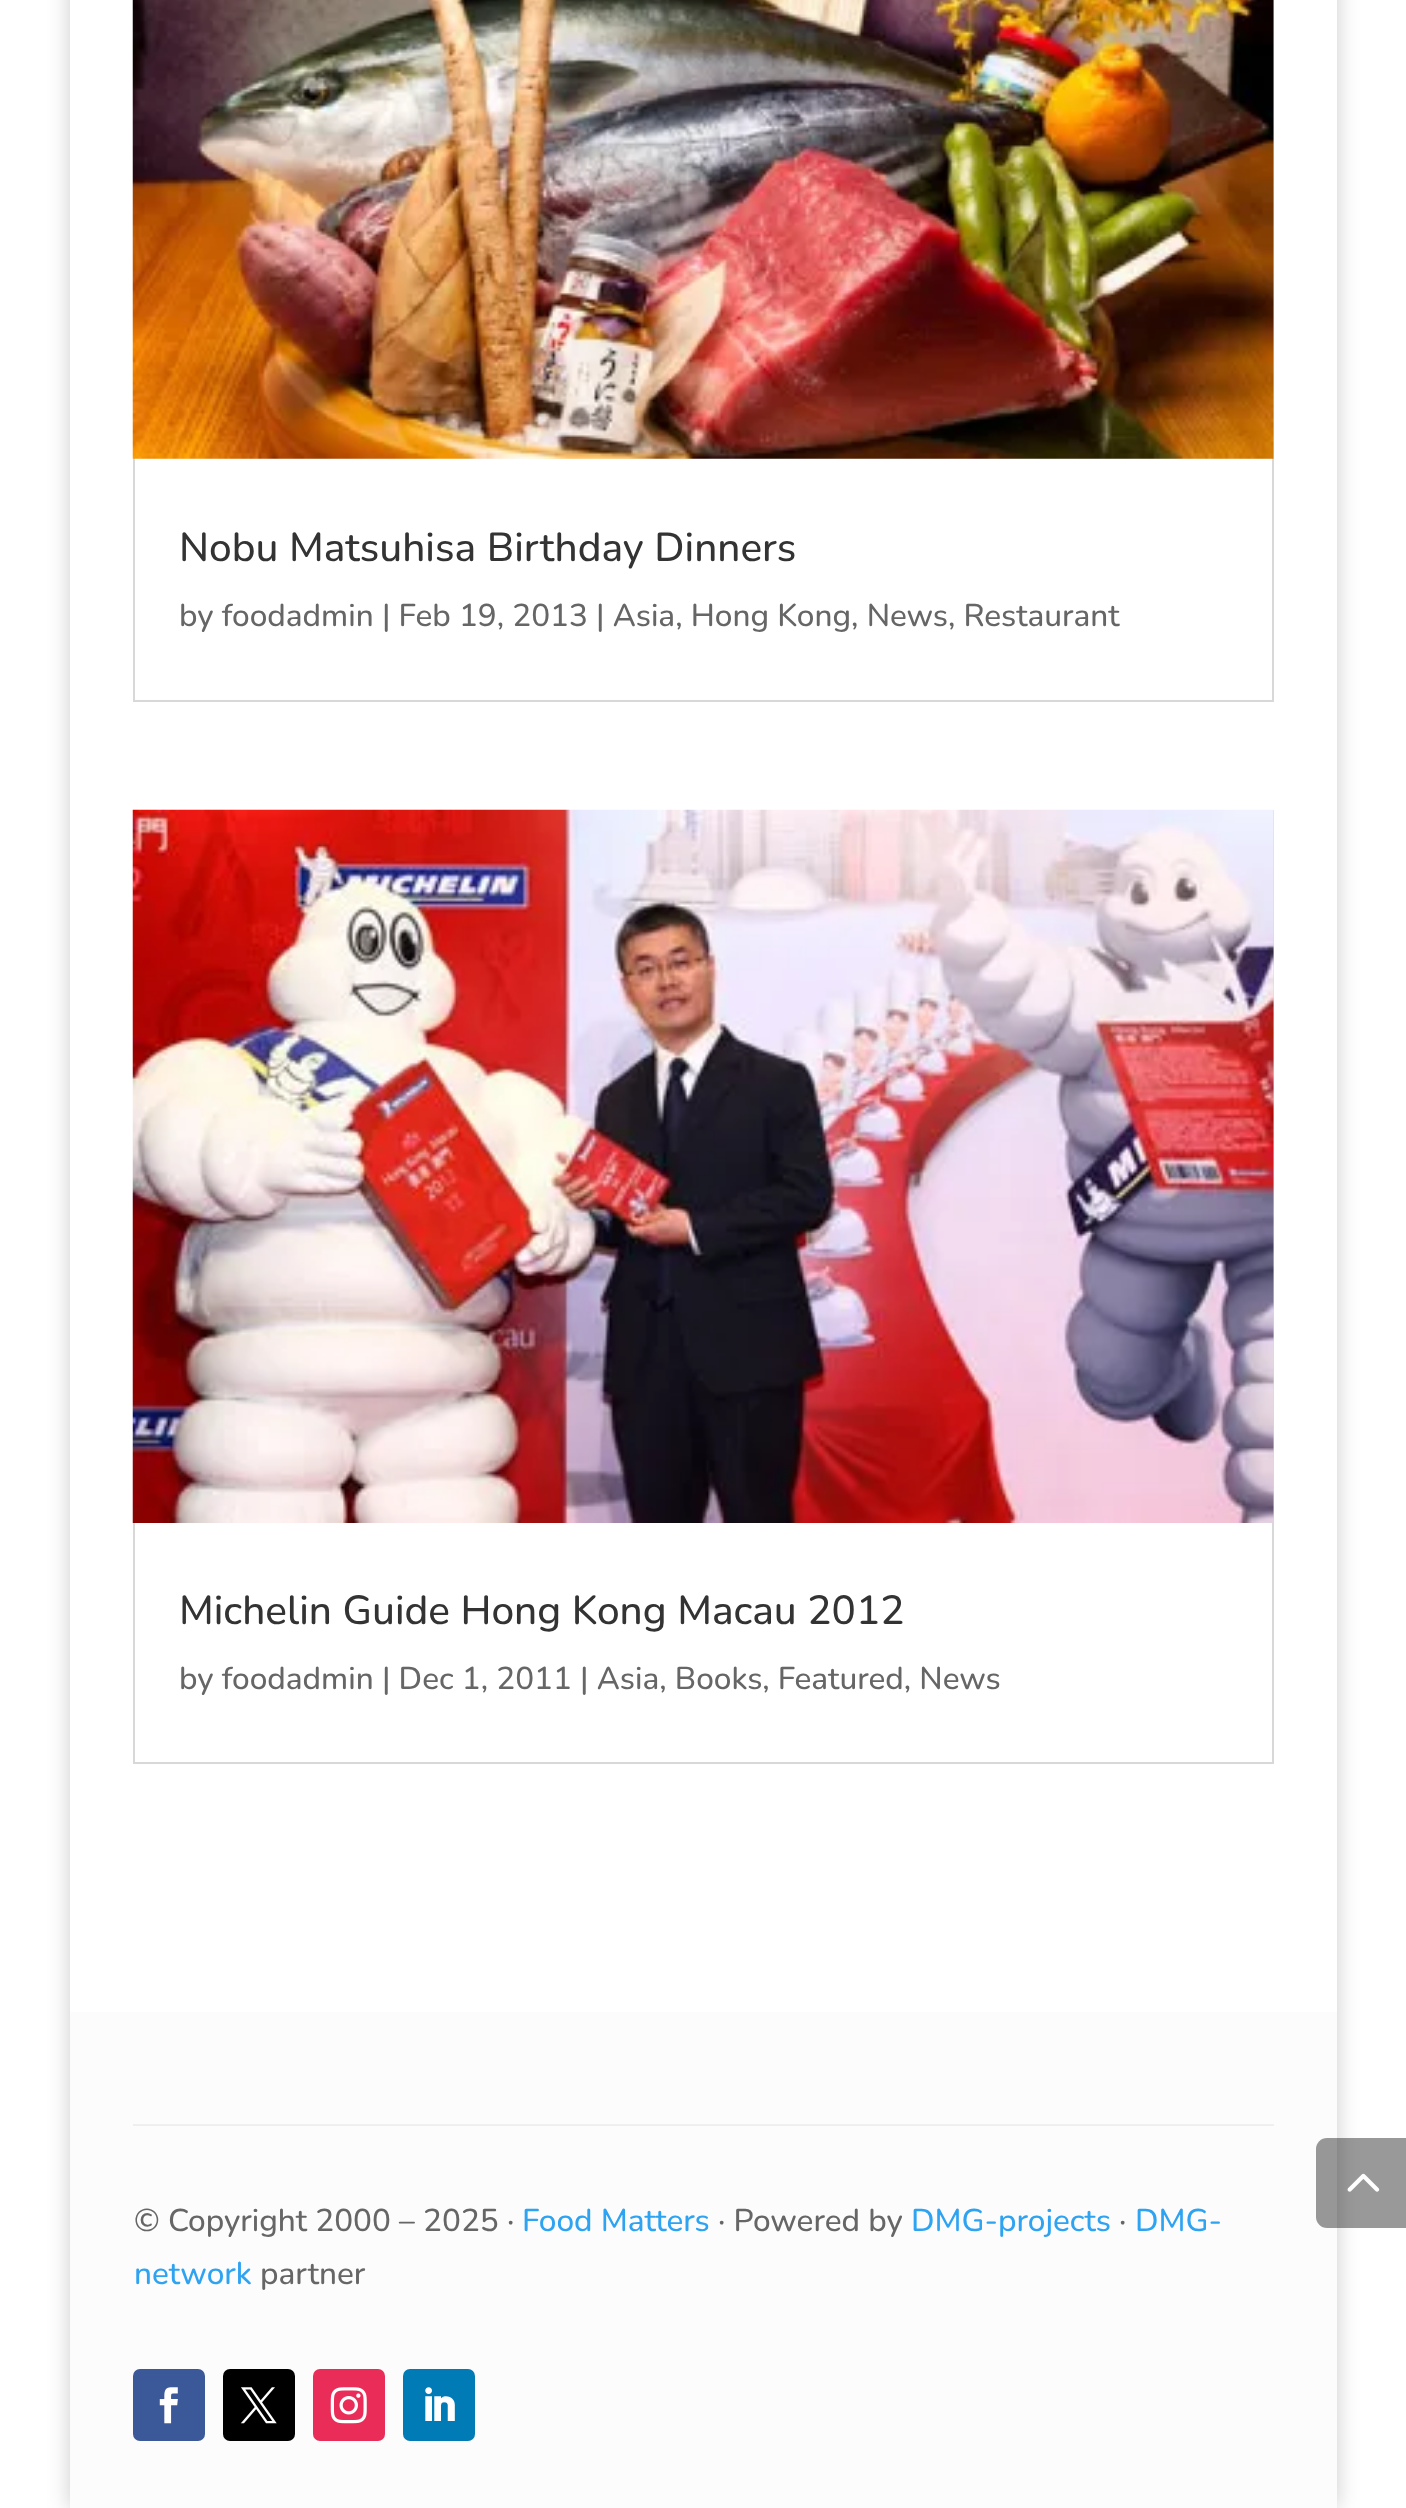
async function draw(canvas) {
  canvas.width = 1406
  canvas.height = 2508
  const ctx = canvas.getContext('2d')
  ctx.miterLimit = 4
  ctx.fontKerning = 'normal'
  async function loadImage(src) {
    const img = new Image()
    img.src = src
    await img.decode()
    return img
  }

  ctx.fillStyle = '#fff'
  ctx.fillRect(0, 0, 1406, 2508)
  ctx.fillStyle = '#00000033'
  ctx.filter = 'blur(11px)'
  ctx.beginPath()
  ctx.rect(70, -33, 1267, 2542)
  ctx.fill()
  ctx.filter = 'none'
  ctx.fillStyle = '#fff'
  ctx.fillRect(70, 0, 1267, 2012)
  ctx.strokeStyle = '#d8d8d8'
  ctx.lineWidth = 2
  ctx.strokeRect(134, -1, 1139, 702)
  ctx.drawImage(await loadImage('image0.png'), 132, 0, 1142, 459)
  ctx.font = '500 40.5px Nunito'
  ctx.fillStyle = '#333'
  ctx.fillText('Nobu Matsuhisa Birthday Dinners', 179, 561)
  ctx.font = '500 31.5px Nunito'
  ctx.fillStyle = '#666'
  ctx.fillText('by foodadmin | Feb 19, 2013 | Asia, Hong Kong, News, Restaurant', 179, 626)
  ctx.strokeRect(134, 811, 1139, 952)
  ctx.drawImage(await loadImage('image1.png'), 132, 809, 1142, 714)
  ctx.font = '500 40.5px Nunito'
  ctx.fillStyle = '#333'
  ctx.fillText('Michelin Guide Hong Kong Macau 2012', 179, 1624)
  ctx.font = '500 31.5px Nunito'
  ctx.fillStyle = '#666'
  ctx.fillText('by foodadmin | Dec 1, 2011 | Asia, Books, Featured, News', 179, 1689)
  ctx.fillStyle = '#fcfcfc'
  ctx.fillRect(70, 2012, 1267, 496)
  ctx.fillStyle = '#efefef'
  ctx.fillRect(133, 2124, 1141, 2)
  ctx.fillStyle = '#666'
  ctx.fillText('© Copyright 2000 – 2025 ·', 134, 2231)
  ctx.fillStyle = '#2ea3f2'
  ctx.fillText('Food Matters', 522, 2231)
  ctx.fillStyle = '#666'
  ctx.fillText('· Powered by', 718, 2231)
  ctx.fillStyle = '#2ea3f2'
  ctx.fillText('DMG-projects', 911, 2231)
  ctx.fillStyle = '#666'
  ctx.fillText('·', 1119, 2231)
  ctx.fillStyle = '#2ea3f2'
  ctx.fillText('DMG-', 1135, 2231)
  ctx.fillText('network', 134, 2284)
  ctx.fillStyle = '#666'
  ctx.fillText('partner', 260, 2284)
  ctx.fillStyle = '#3b5998'
  ctx.beginPath()
  ctx.roundRect(133, 2369, 72, 72, 7)
  ctx.fill()
  ctx.drawImage(await loadImage('image2.png'), 159, 2387, 19, 37)
  ctx.fillStyle = '#000'
  ctx.beginPath()
  ctx.roundRect(223, 2369, 72, 72, 7)
  ctx.fill()
  ctx.drawImage(await loadImage('image3.png'), 240, 2387, 37, 37)
  ctx.fillStyle = '#ea2c59'
  ctx.beginPath()
  ctx.roundRect(313, 2369, 72, 72, 7)
  ctx.fill()
  ctx.drawImage(await loadImage('image4.png'), 330, 2387, 37, 37)
  ctx.fillStyle = '#007bb6'
  ctx.beginPath()
  ctx.roundRect(403, 2369, 72, 72, 7)
  ctx.fill()
  ctx.drawImage(await loadImage('image5.png'), 425, 2387, 30, 34)
  ctx.fillStyle = '#00000066'
  ctx.beginPath()
  ctx.roundRect(1316, 2138, 90, 90, [11, 0, 0, 11])
  ctx.fill()
  ctx.drawImage(await loadImage('image6.png'), 1347, 2173, 33, 19)
}

draw(document.querySelector('canvas'))
